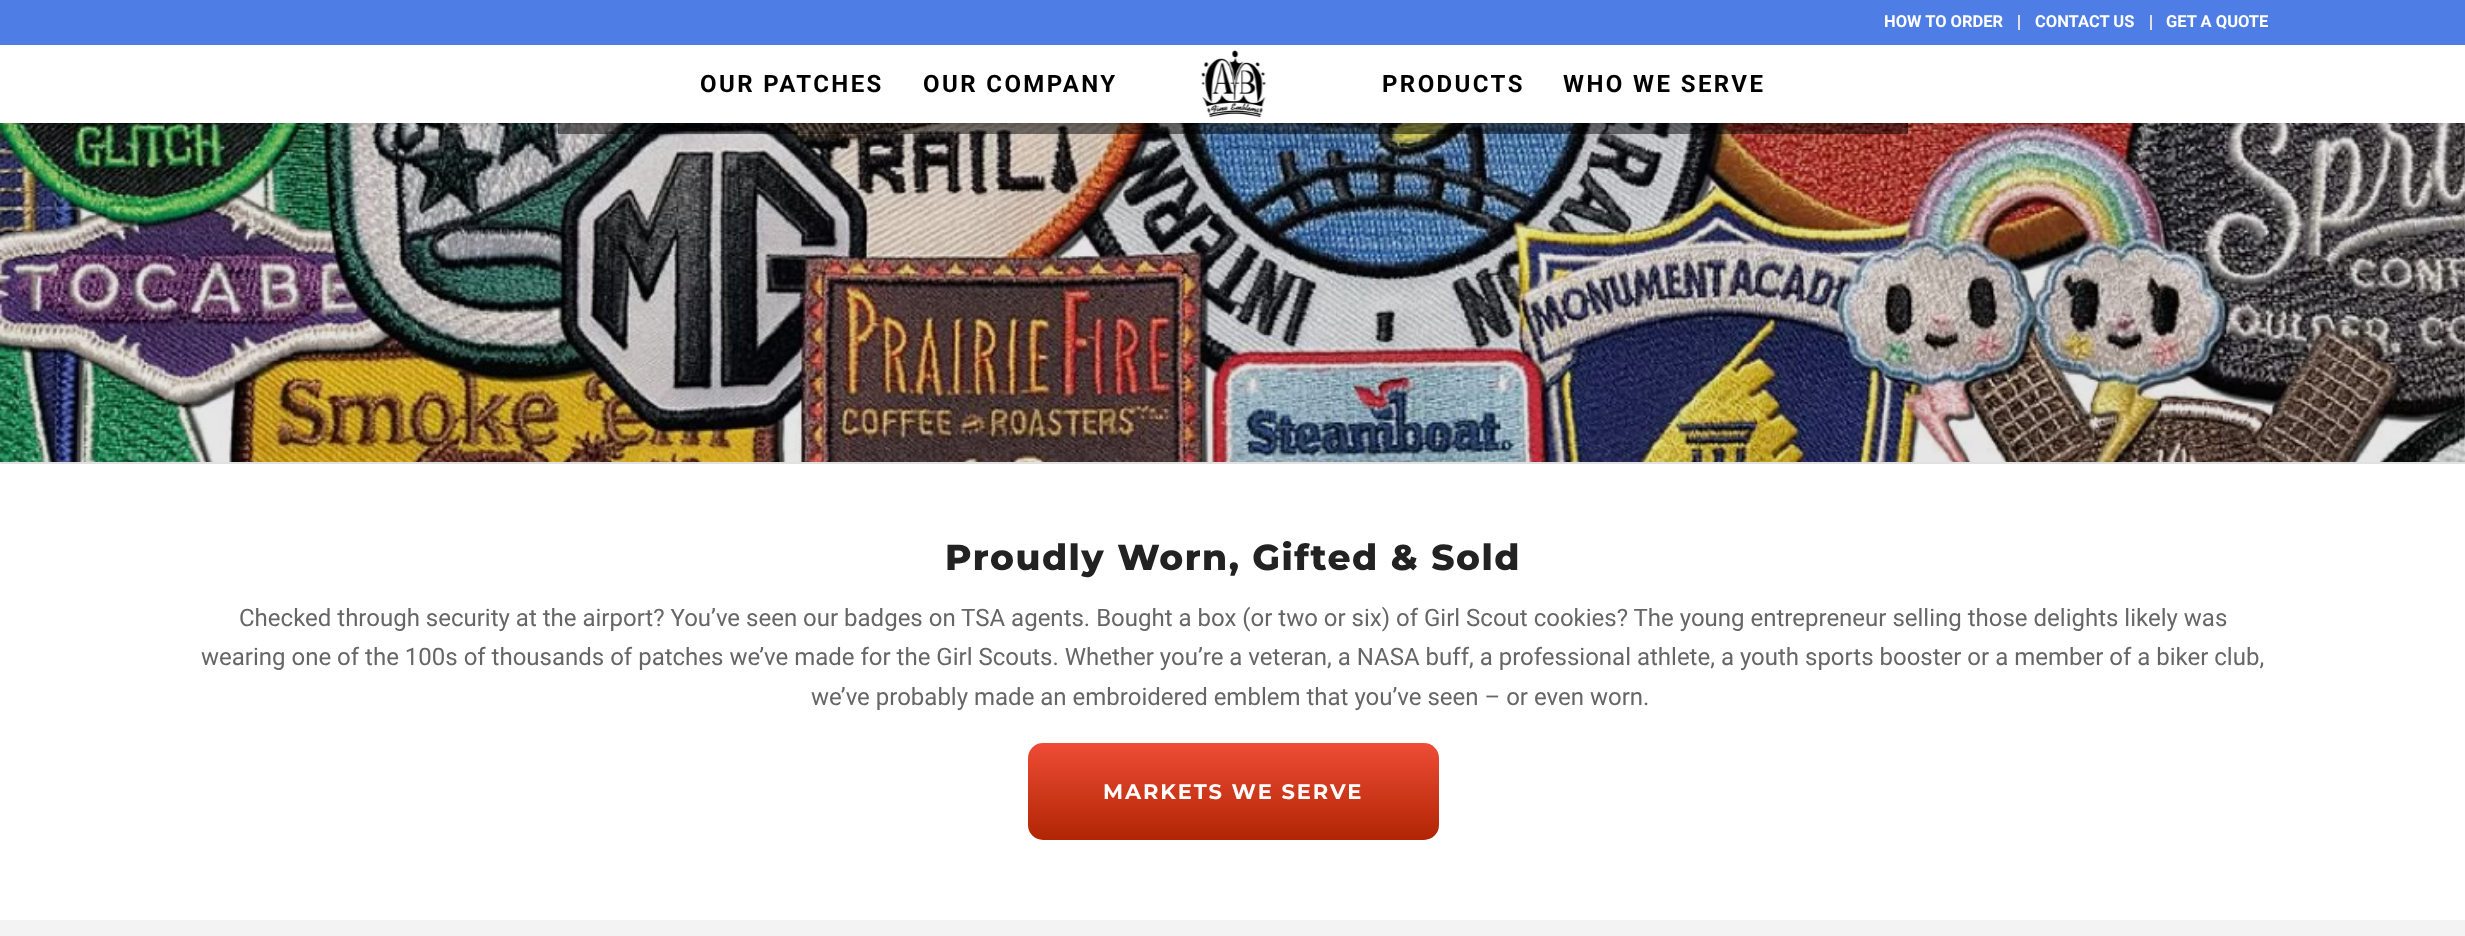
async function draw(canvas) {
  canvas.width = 2465
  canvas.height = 936
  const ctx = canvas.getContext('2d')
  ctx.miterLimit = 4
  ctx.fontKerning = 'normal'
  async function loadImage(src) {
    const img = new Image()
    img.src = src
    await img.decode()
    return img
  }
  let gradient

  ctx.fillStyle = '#fff'
  ctx.fillRect(0, 0, 2465, 936)
  ctx.drawImage(await loadImage('image1.png'), 0, 123, 2465, 339)
  ctx.fillStyle = '#00000080'
  ctx.fillRect(558, 123, 1350, 11)
  ctx.fillStyle = '#0000001a'
  ctx.filter = 'blur(1.5px)'
  ctx.beginPath()
  ctx.rect(-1, -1, 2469, 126)
  ctx.fill()
  ctx.filter = 'none'
  ctx.fillStyle = '#4e7ee5'
  ctx.fillRect(0, 0, 2465, 45)
  ctx.fillStyle = '#e1e1e1'
  ctx.fillRect(2018, 15, 2, 15)
  ctx.font = 'bold 16.5px Roboto'
  ctx.fillStyle = '#fff'
  ctx.fillText('HOW TO ORDER', 1884, 27)
  ctx.fillStyle = '#e1e1e1'
  ctx.fillRect(2150, 15, 2, 15)
  ctx.fillStyle = '#fff'
  ctx.fillText('CONTACT US', 2035, 27)
  ctx.fillText('GET A QUOTE', 2166, 27)
  ctx.fillRect(0, 45, 2465, 78)
  ctx.drawImage(await loadImage('image0.png'), 1201, 50, 66, 69)
  ctx.letterSpacing = '2.4px'
  ctx.font = 'bold 24px Roboto'
  ctx.fillStyle = '#000'
  ctx.fillText('OUR PATCHES', 700, 92)
  ctx.fillText('OUR COMPANY', 923, 92)
  ctx.fillText('PRODUCTS', 1382, 92)
  ctx.fillText('WHO WE SERVE', 1563, 92)
  ctx.fillStyle = '#e1e1e1'
  ctx.fillRect(0, 462, 2465, 2)
  ctx.letterSpacing = '1.5px'
  ctx.font = '800 36px Montserrat'
  ctx.fillStyle = '#222'
  ctx.fillText('Proudly Worn, Gifted & Sold', 945, 570)
  ctx.letterSpacing = '0px'
  ctx.font = '24px Roboto'
  ctx.fillStyle = '#666'
  ctx.fillText('Checked through security at the airport? You’ve seen our badges on TSA agents. Bought a box (or two or six) of Girl Scout cookies? The young entrepreneur selling those delights likely was', 239, 626)
  ctx.fillText('wearing one of the 100s of thousands of patches we’ve made for the Girl Scouts. Whether you’re a veteran, a NASA buff, a professional athlete, a youth sports booster or a member of a biker club,', 201, 665)
  ctx.fillText('we’ve probably made an embroidered emblem that you’ve seen – or even worn.', 811, 705)
  gradient = ctx.createLinearGradient(1233, 743, 1233, 840)
  gradient.addColorStop(0, '#ee4c36')
  gradient.addColorStop(1, '#b12503')
  ctx.fillStyle = gradient
  ctx.beginPath()
  ctx.roundRect(1028, 743, 411, 97, 15)
  ctx.fill()
  ctx.letterSpacing = '1.9px'
  ctx.font = 'bold 21px Montserrat'
  ctx.fillStyle = '#fff'
  ctx.fillText('MARKETS WE SERVE', 1103, 799)
  ctx.fillStyle = '#f3f3f3'
  ctx.fillRect(0, 920, 2465, 16)
}

draw(document.querySelector('canvas'))
